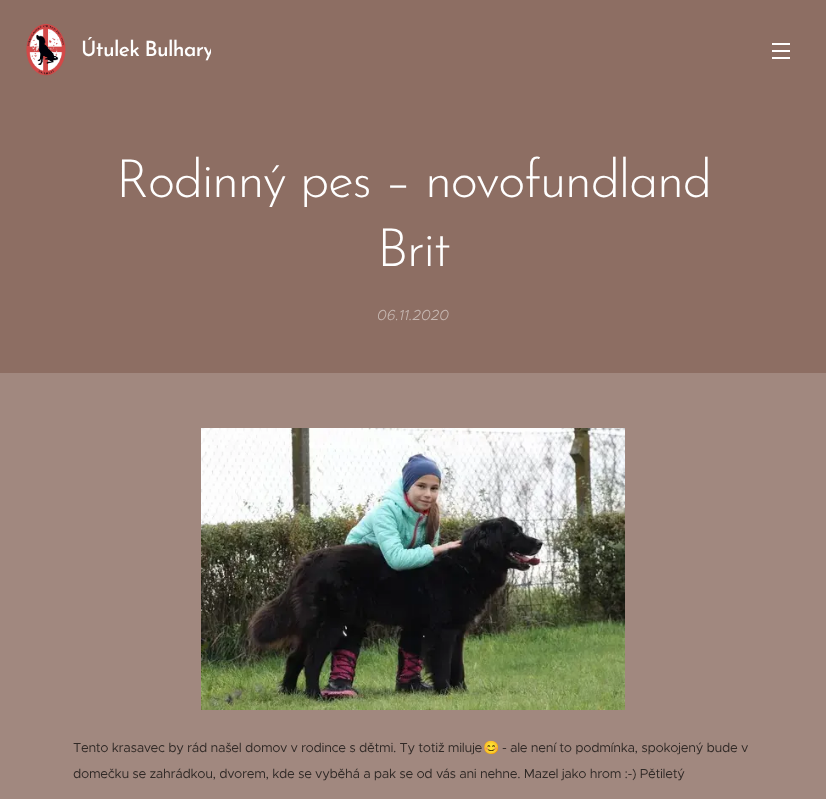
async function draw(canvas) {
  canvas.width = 826
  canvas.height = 799
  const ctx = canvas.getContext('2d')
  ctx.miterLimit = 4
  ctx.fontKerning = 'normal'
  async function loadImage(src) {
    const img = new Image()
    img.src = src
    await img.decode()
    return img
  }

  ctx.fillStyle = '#8d6e63'
  ctx.fillRect(0, 0, 826, 799)
  ctx.drawImage(await loadImage('image0.png'), 26, 23, 40, 53)
  ctx.save()
  ctx.beginPath()
  ctx.rect(77, 34, 134, 32)
  ctx.clip()
  ctx.letterSpacing = '-0.6px'
  ctx.wordSpacing = '-1px'
  ctx.font = '500 21px Josefin Sans'
  ctx.fillStyle = '#fff'
  ctx.fillText('Útulek Bulhary', 81, 56)
  ctx.restore()
  ctx.fillStyle = '#fff'
  ctx.fillRect(772, 50, 18, 2)
  ctx.fillRect(772, 43, 18, 2)
  ctx.fillRect(772, 57, 18, 2)
  ctx.letterSpacing = '-1.6px'
  ctx.font = '300 53px Josefin Sans'
  ctx.fillText('Rodinný pes – novofundland', 116, 197)
  ctx.fillText('Brit', 377, 266)
  ctx.letterSpacing = '0px'
  ctx.font = 'italic 300 14.5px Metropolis'
  ctx.fillStyle = '#c6b7b1'
  ctx.fillText('06.11.2020', 377, 320)
  ctx.fillStyle = '#a1887f'
  ctx.fillRect(0, 373, 826, 426)
  ctx.drawImage(await loadImage('image1.png'), 201, 428, 424, 282)
  ctx.letterSpacing = '-0.32px'
  ctx.font = '13.1px Metropolis'
  ctx.fillStyle = '#302926'
  ctx.fillText('Tento krasavec by rád našel domov v rodince s dětmi. Ty totiž miluje', 73, 752)
  ctx.font = '13.1px Noto Color Emoji'
  ctx.fillText('😊', 483, 752)
  ctx.font = '13.1px Metropolis'
  ctx.fillText('- ale není to podmínka, spokojený bude v', 502, 752)
  ctx.fillText('domečku se zahrádkou, dvorem, kde se vyběhá a pak se od vás ani nehne. Mazel jako hrom :-) Pětiletý', 73, 778)
}

draw(document.querySelector('canvas'))
